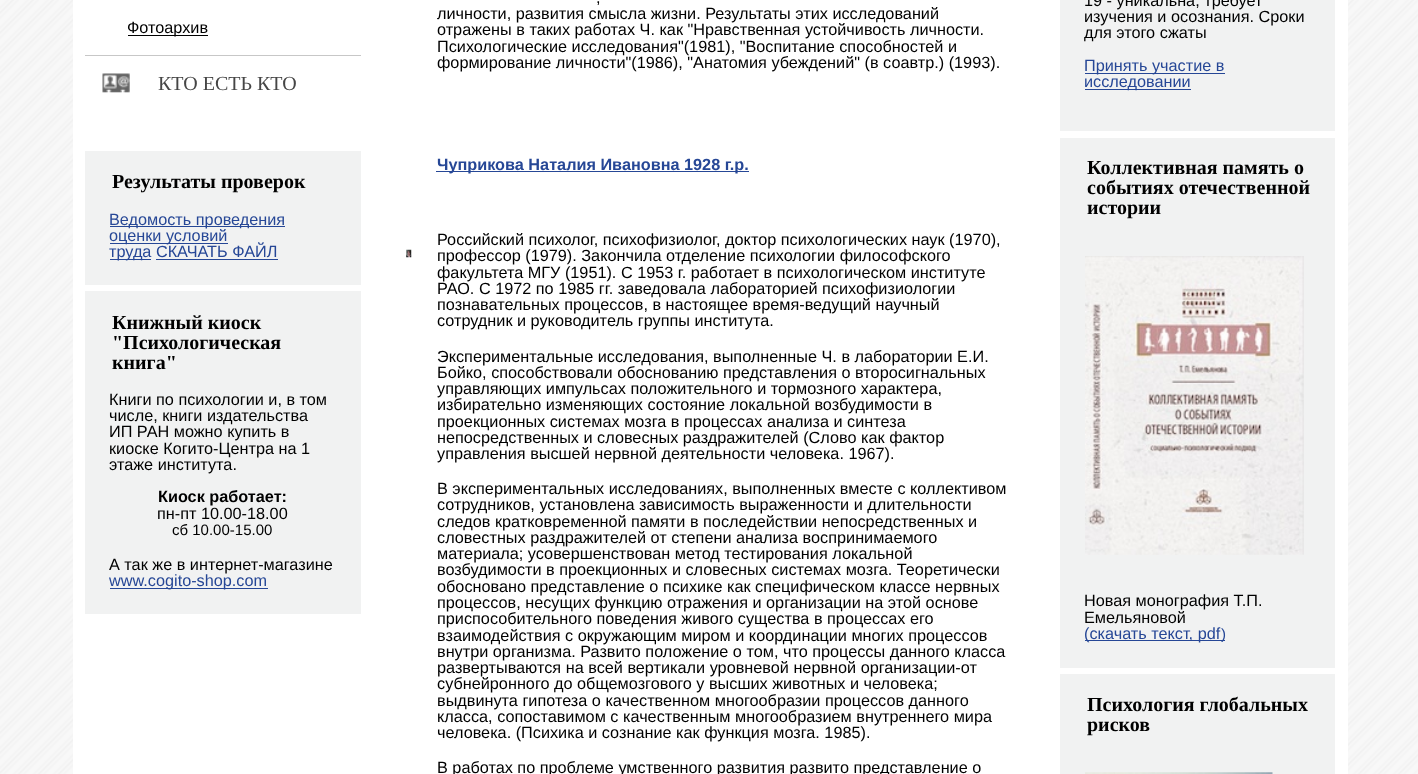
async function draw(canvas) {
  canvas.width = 1418
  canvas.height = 774
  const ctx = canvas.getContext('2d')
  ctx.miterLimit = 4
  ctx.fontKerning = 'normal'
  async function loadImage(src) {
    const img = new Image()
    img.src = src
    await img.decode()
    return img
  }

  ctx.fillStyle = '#fff'
  ctx.fillRect(0, 0, 1418, 774)
  ctx.drawImage(await loadImage('image0.png'), 0, 0, 1418, 774)
  ctx.fillRect(73, 0, 1275, 774)
  ctx.fillStyle = '#000'
  ctx.fillRect(128, 35, 80, 1)
  ctx.font = '16.25px Liberation Sans'
  ctx.fillText('Фотоархив', 127, 33)
  ctx.fillStyle = '#c7c7c7'
  ctx.fillRect(85, 55, 276, 1)
  ctx.drawImage(await loadImage('image1.png'), 102, 73, 28, 20)
  ctx.font = '20px Liberation Serif'
  ctx.fillStyle = '#464646'
  ctx.fillText('КТО ЕСТЬ КТО', 158, 90)
  ctx.fillStyle = '#f1f2f2'
  ctx.fillRect(85, 151, 276, 134)
  ctx.font = 'bold 20px Liberation Serif'
  ctx.fillStyle = '#000'
  ctx.fillText('Результаты проверок', 112, 188)
  ctx.fillStyle = '#264796'
  ctx.fillRect(110, 226, 175, 1)
  ctx.font = '16.25px Liberation Sans'
  ctx.fillText('Ведомость проведения', 109, 225)
  ctx.fillRect(110, 243, 118, 1)
  ctx.fillText('оценки условий', 109, 241)
  ctx.fillRect(110, 259, 41, 1)
  ctx.fillText('труда СКАЧАТЬ ФАЙЛ', 109, 257)
  ctx.fillRect(156, 259, 122, 1)
  ctx.fillStyle = '#f1f2f2'
  ctx.fillRect(85, 291, 276, 323)
  ctx.font = 'bold 20px Liberation Serif'
  ctx.fillStyle = '#000'
  ctx.fillText('Книжный киоск', 112, 329)
  ctx.fillText('"Психологическая', 112, 349)
  ctx.fillText('книга"', 112, 369)
  ctx.font = '16.25px Liberation Sans'
  ctx.fillText('Книги по психологии и, в том', 109, 405)
  ctx.fillText('числе, книги издательства', 109, 421)
  ctx.fillText('ИП РАН можно купить в', 109, 437)
  ctx.fillText('киоске Когито-Центра на 1', 109, 454)
  ctx.fillText('этаже института.', 109, 470)
  ctx.font = 'bold 16.25px Liberation Sans'
  ctx.fillText('Киоск работает:', 158, 502)
  ctx.font = '16.25px Liberation Sans'
  ctx.fillText('пн-пт 10.00-18.00', 157, 519)
  ctx.font = '15px Liberation Sans'
  ctx.fillText('сб 10.00-15.00', 172, 535)
  ctx.font = '16.25px Liberation Sans'
  ctx.fillText('А так же в интернет-магазине', 109, 570)
  ctx.fillStyle = '#264796'
  ctx.fillRect(110, 588, 158, 1)
  ctx.fillText('www.cogito-shop.com', 109, 586)
  ctx.fillStyle = '#000'
  ctx.fillText(',', 596, 3)
  ctx.fillText('личности, развития смысла жизни. Результаты этих исследований', 437, 19)
  ctx.fillText('отражены в таких работах Ч. как "Нравственная устойчивость личности.', 437, 35)
  ctx.fillText('Психологические исследования"(1981), "Воспитание способностей и', 437, 52)
  ctx.fillText('формирование личности"(1986), "Анатомия убеждений" (в соавтр.) (1993).', 437, 68)
  ctx.fillStyle = '#264796'
  ctx.fillRect(436, 171, 313, 1)
  ctx.font = 'bold 16.25px Liberation Sans'
  ctx.fillText('Чуприкова Наталия Ивановна 1928 г.р.', 437, 170)
  ctx.drawImage(await loadImage('image2.png'), 406, 249, 6, 9)
  ctx.font = '16.25px Liberation Sans'
  ctx.fillStyle = '#000'
  ctx.fillText('Российский психолог, психофизиолог, доктор психологических наук (1970),', 437, 245)
  ctx.fillText('профессор (1979). Закончила отделение психологии философского', 437, 261)
  ctx.fillText('факультета МГУ (1951). С 1953 г. работает в психологическом институте', 437, 278)
  ctx.fillText('РАО. С 1972 по 1985 гг. заведовала лабораторией психофизиологии', 437, 294)
  ctx.fillText('познавательных процессов, в настоящее время-ведущий научный', 437, 310)
  ctx.fillText('сотрудник и руководитель группы института.', 437, 326)
  ctx.fillText('Экспериментальные исследования, выполненные Ч. в лаборатории Е.И.', 437, 362)
  ctx.fillText('Бойко, способствовали обоснованию представления о второсигнальных', 437, 378)
  ctx.fillText('управляющих импульсах положительного и тормозного характера,', 437, 394)
  ctx.fillText('избирательно изменяющих состояние локальной возбудимости в', 437, 410)
  ctx.fillText('проекционных системах мозга в процессах анализа и синтеза', 437, 427)
  ctx.fillText('непосредственных и словесных раздражителей (Слово как фактор', 437, 443)
  ctx.fillText('управления высшей нервной деятельности человека. 1967).', 437, 459)
  ctx.fillText('В экспериментальных исследованиях, выполненных вместе с коллективом', 437, 494)
  ctx.fillText('сотрудников, установлена зависимость выраженности и длительности', 437, 510)
  ctx.fillText('следов кратковременной памяти в последействии непосредственных и', 437, 527)
  ctx.fillText('словестных раздражителей от степени анализа воспринимаемого', 437, 543)
  ctx.fillText('материала; усовершенствован метод тестирования локальной', 437, 559)
  ctx.fillText('возбудимости в проекционных и словесных системах мозга. Теоретически', 437, 575)
  ctx.fillText('обосновано представление о психике как специфическом классе нервных', 437, 592)
  ctx.fillText('процессов, несущих функцию отражения и организации на этой основе', 437, 608)
  ctx.fillText('приспособительного поведения живого существа в процессах его', 437, 624)
  ctx.fillText('взаимодействия с окружающим миром и координации многих процессов', 437, 641)
  ctx.fillText('внутри организма. Развито положение о том, что процессы данного класса', 437, 657)
  ctx.fillText('развертываются на всей вертикали уровневой нервной организации-от', 437, 673)
  ctx.fillText('субнейронного до общемозгового у высших животных и человека;', 437, 689)
  ctx.fillText('выдвинута гипотеза о качественном многообразии процессов данного', 437, 706)
  ctx.fillText('класса, сопоставимом с качественным многообразием внутреннего мира', 437, 722)
  ctx.fillText('человека. (Психика и сознание как функция мозга. 1985).', 437, 738)
  ctx.fillText('В работах по проблеме умственного развития развито представление о', 437, 773)
  ctx.fillStyle = '#f1f2f2'
  ctx.fillRect(1060, 0, 275, 131)
  ctx.fillStyle = '#000'
  ctx.fillText('19 - уникальна, требует', 1084, 6)
  ctx.fillText('изучения и осознания. Сроки', 1084, 22)
  ctx.fillText('для этого сжаты', 1084, 38)
  ctx.fillStyle = '#264796'
  ctx.fillRect(1085, 73, 140, 1)
  ctx.fillText('Принять участие в', 1084, 71)
  ctx.fillRect(1085, 89, 106, 1)
  ctx.fillText('исследовании', 1084, 87)
  ctx.fillStyle = '#f1f2f2'
  ctx.fillRect(1060, 138, 275, 530)
  ctx.font = 'bold 20px Liberation Serif'
  ctx.fillStyle = '#000'
  ctx.fillText('Коллективная память о', 1087, 174)
  ctx.fillText('событиях отечественной', 1087, 194)
  ctx.fillText('истории', 1087, 214)
  ctx.drawImage(await loadImage('image3.png'), 1085, 256, 219, 299)
  ctx.font = '16.25px Liberation Sans'
  ctx.fillText('Новая монография Т.П.', 1084, 606)
  ctx.fillText('Емельяновой', 1084, 623)
  ctx.fillStyle = '#264796'
  ctx.fillRect(1085, 640, 135, 1)
  ctx.fillText('(скачать текст, pdf', 1084, 639)
  ctx.fillRect(1220, 640, 5, 1)
  ctx.font = '15px Liberation Sans'
  ctx.fillText(')', 1221, 639)
  ctx.fillStyle = '#f1f2f2'
  ctx.fillRect(1060, 674, 275, 100)
  ctx.font = 'bold 20px Liberation Serif'
  ctx.fillStyle = '#000'
  ctx.fillText('Психология глобальных', 1087, 711)
  ctx.fillText('рисков', 1087, 731)
  ctx.drawImage(await loadImage('image4.png'), 1085, 772, 188, 2)
}

draw(document.querySelector('canvas'))
